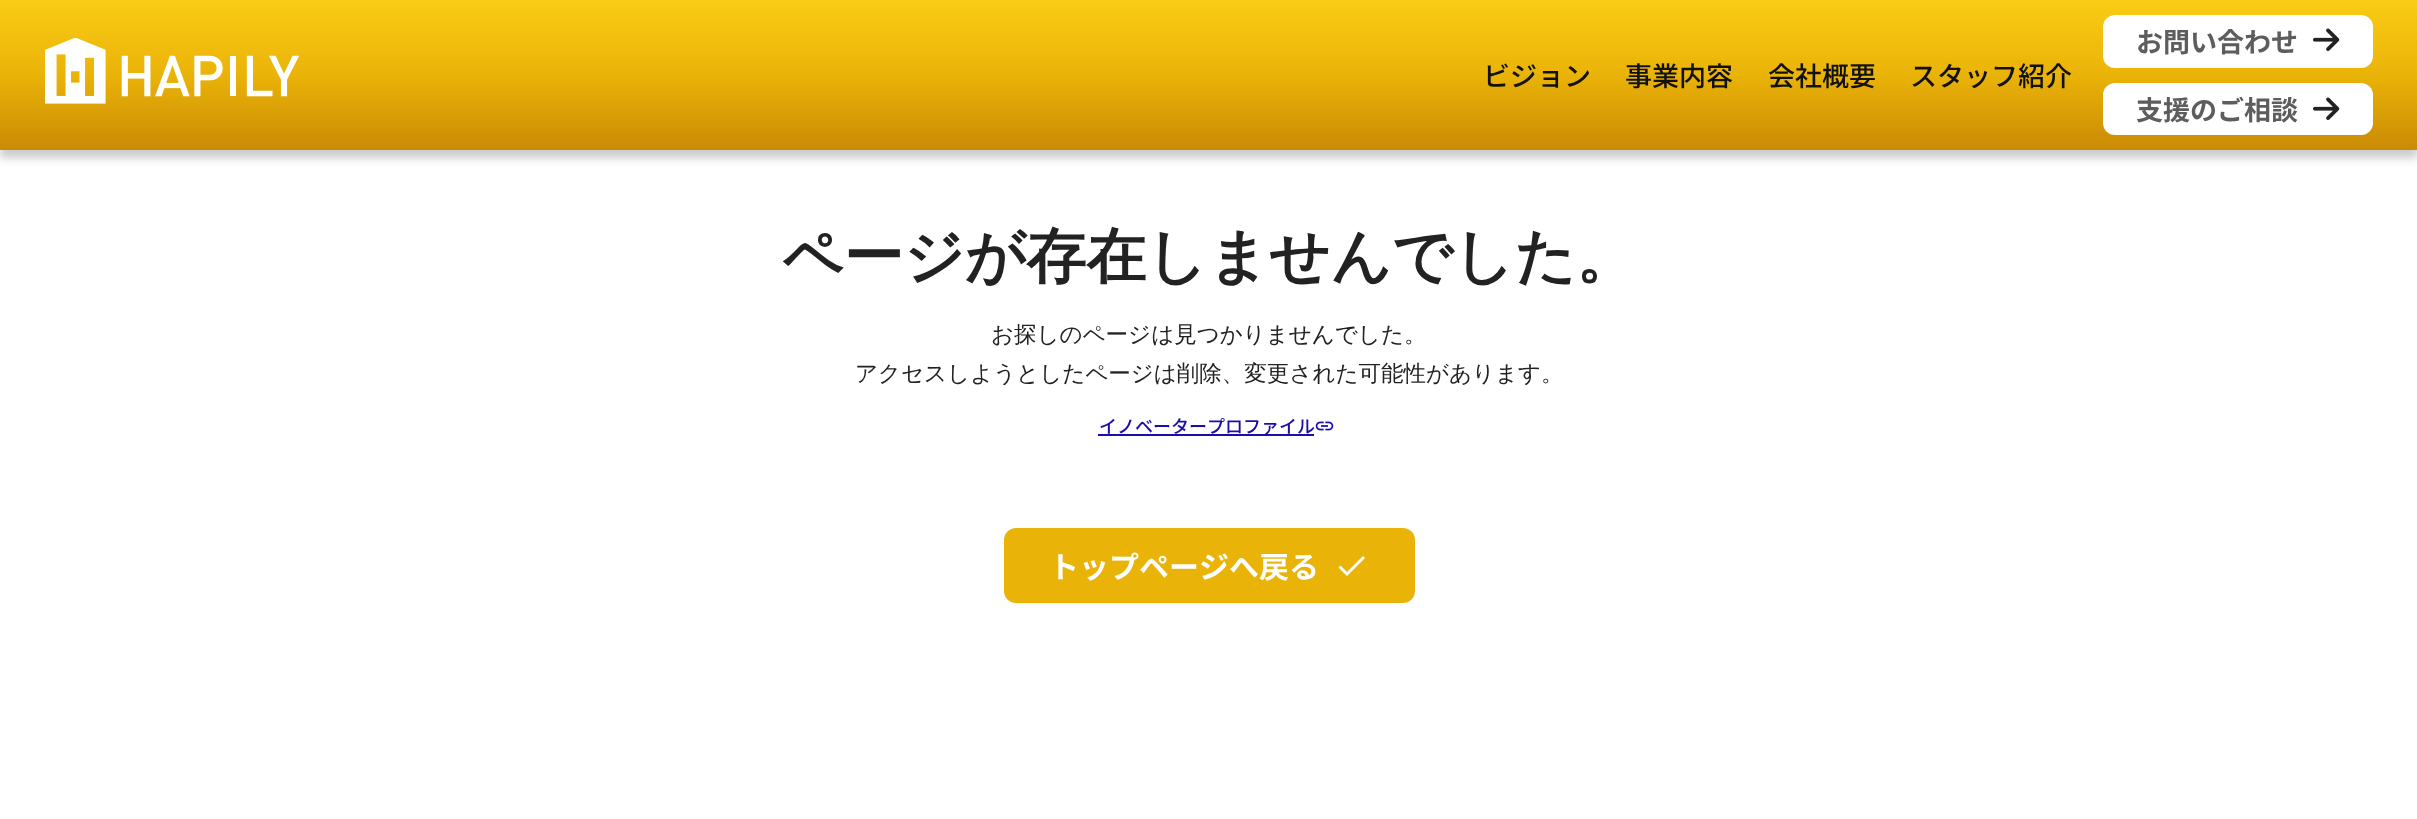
async function draw(canvas) {
  canvas.width = 2417
  canvas.height = 819
  const ctx = canvas.getContext('2d')
  ctx.miterLimit = 4
  ctx.fontKerning = 'normal'
  async function loadImage(src) {
    const img = new Image()
    img.src = src
    await img.decode()
    return img
  }
  let gradient

  ctx.fillStyle = '#fff'
  ctx.fillRect(0, 0, 2417, 819)
  ctx.fillStyle = '#00000033'
  ctx.filter = 'blur(4px)'
  ctx.beginPath()
  ctx.rect(0, 8, 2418, 150)
  ctx.fill()
  ctx.filter = 'none'
  gradient = ctx.createLinearGradient(1209, 0, 1209, 150)
  gradient.addColorStop(0, '#facc15')
  gradient.addColorStop(0.5, '#eab308')
  gradient.addColorStop(1, '#ca8a04')
  ctx.fillStyle = gradient
  ctx.fillRect(0, 0, 2417, 150)
  ctx.drawImage(await loadImage('image0.png'), 45, 38, 255, 66)
  ctx.font = '500 27px Noto Sans JP'
  ctx.fillStyle = '#111'
  ctx.fillText('ビジョン', 1483, 86)
  ctx.fillText('事業内容', 1625, 86)
  ctx.fillText('会社概要', 1768, 86)
  ctx.fillText('スタッフ紹介', 1910, 86)
  ctx.fillStyle = '#fff'
  ctx.beginPath()
  ctx.roundRect(2103, 15, 270, 53, 12)
  ctx.fill()
  ctx.font = 'bold 27px Noto Sans JP'
  ctx.fillStyle = '#5d5d5d'
  ctx.fillText('お問い合わせ', 2136, 52)
  ctx.drawImage(await loadImage('image1.png'), 2313, 28, 27, 23)
  ctx.fillStyle = '#fff'
  ctx.beginPath()
  ctx.roundRect(2103, 83, 270, 52, 12)
  ctx.fill()
  ctx.fillStyle = '#5d5d5d'
  ctx.fillText('支援のご相談', 2136, 120)
  ctx.drawImage(await loadImage('image1.png'), 2313, 97, 27, 23)
  ctx.font = 'bold 60px WenQuanYi Zen Hei'
  ctx.fillStyle = '#222'
  ctx.fillText('ページが存在しませんでした。', 782, 277)
  ctx.font = '500 22.5px WenQuanYi Zen Hei'
  ctx.fillText('お探しのページは見つかりませんでした。', 991, 342)
  ctx.fillText('アクセスしようとしたページは削除、変更された可能性があります。', 855, 381)
  ctx.fillStyle = '#1a0dab'
  ctx.fillRect(1098, 434, 216, 2)
  ctx.font = '500 18px Noto Sans JP'
  ctx.fillText('イノベータープロファイル', 1099, 433)
  ctx.drawImage(await loadImage('image2.png'), 1315, 421, 19, 10)
  ctx.fillStyle = '#eab308'
  ctx.beginPath()
  ctx.roundRect(1004, 528, 411, 75, 12)
  ctx.fill()
  ctx.font = 'bold 30px Noto Sans JP'
  ctx.fillStyle = '#fff'
  ctx.fillText('トップページへ戻る', 1049, 578)
  ctx.beginPath()
  ctx.moveTo(1347, 572)
  ctx.lineTo(1363, 556)
  ctx.lineTo(1365, 558)
  ctx.lineTo(1347, 576)
  ctx.lineTo(1338.5, 567.5)
  ctx.lineTo(1340.5, 565.5)
  ctx.closePath()
  ctx.fill()
}

draw(document.querySelector('canvas'))
